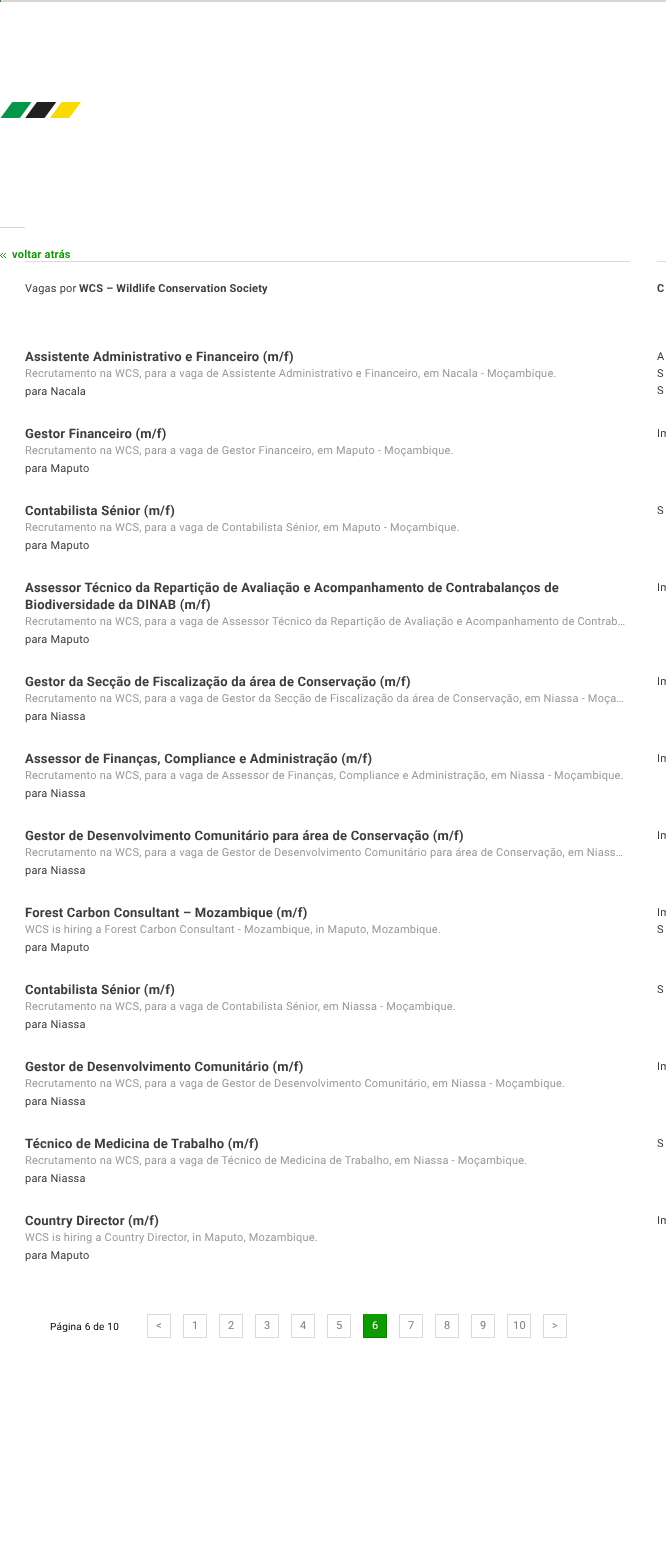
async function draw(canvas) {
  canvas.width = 666
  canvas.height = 1553
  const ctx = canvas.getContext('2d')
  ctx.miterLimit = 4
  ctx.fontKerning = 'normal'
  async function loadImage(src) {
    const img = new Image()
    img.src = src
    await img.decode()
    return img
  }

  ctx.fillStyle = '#fff'
  ctx.fillRect(0, 0, 666, 1553)
  ctx.fillStyle = '#d6d5d2'
  ctx.fillRect(0, 0, 666, 2)
  ctx.fillStyle = '#0b8200'
  ctx.beginPath()
  ctx.roundRect(0, 0, 1, 2, 0.5)
  ctx.fill()
  ctx.drawImage(await loadImage('image0.png'), 0, 102, 81, 16)
  ctx.fillStyle = '#d6d6d6'
  ctx.fillRect(0, 227, 25, 1)
  ctx.drawImage(await loadImage('image1.png'), 0, 253, 6, 5)
  ctx.letterSpacing = '0.22px'
  ctx.font = 'bold 11px Roboto'
  ctx.fillStyle = '#0d9b00'
  ctx.fillText('voltar atrás', 12, 258)
  ctx.fillStyle = '#dbdbdb'
  ctx.fillRect(25, 261, 605, 1)
  ctx.font = '11px Roboto'
  ctx.fillStyle = '#3a3c3d'
  ctx.fillText('Vagas por', 25, 292)
  ctx.font = 'bold 11px Roboto'
  ctx.fillText('WCS – Wildlife Conservation Society', 79, 292)
  ctx.fillStyle = '#dbdbdb'
  ctx.fillRect(657, 261, 9, 1)
  ctx.fillStyle = '#3a3c3d'
  ctx.fillText('C', 657, 292)
  ctx.font = 'bold 13px Roboto'
  ctx.fillText('Assistente Administrativo e Financeiro (m/f)', 25, 361)
  ctx.font = '11px Roboto'
  ctx.fillStyle = '#96999d'
  ctx.fillText('Recrutamento na WCS, para a vaga de Assistente Administrativo e Financeiro, em Nacala - Moçambique.', 25, 377)
  ctx.fillStyle = '#3a3c3d'
  ctx.fillText('para Nacala', 25, 395)
  ctx.fillText('A', 657, 360)
  ctx.fillText('S', 657, 377)
  ctx.fillText('S', 657, 394)
  ctx.font = 'bold 13px Roboto'
  ctx.fillText('Gestor Financeiro (m/f)', 25, 438)
  ctx.font = '11px Roboto'
  ctx.fillStyle = '#96999d'
  ctx.fillText('Recrutamento na WCS, para a vaga de Gestor Financeiro, em Maputo - Moçambique.', 25, 454)
  ctx.fillStyle = '#3a3c3d'
  ctx.fillText('para Maputo', 25, 472)
  ctx.fillText('Im', 657, 437)
  ctx.font = 'bold 13px Roboto'
  ctx.fillText('Contabilista Sénior (m/f)', 25, 515)
  ctx.font = '11px Roboto'
  ctx.fillStyle = '#96999d'
  ctx.fillText('Recrutamento na WCS, para a vaga de Contabilista Sénior, em Maputo - Moçambique.', 25, 531)
  ctx.fillStyle = '#3a3c3d'
  ctx.fillText('para Maputo', 25, 549)
  ctx.fillText('S', 657, 514)
  ctx.font = 'bold 13px Roboto'
  ctx.fillText('Assessor Técnico da Repartição de Avaliação e Acompanhamento de Contrabalanços de', 25, 592)
  ctx.fillText('Biodiversidade da DINAB (m/f)', 25, 609)
  ctx.font = '11px Roboto'
  ctx.fillStyle = '#96999d'
  ctx.fillText('Recrutamento na WCS, para a vaga de Assessor Técnico da Repartição de Avaliação e Acompanhamento de Contrab…', 25, 625)
  ctx.fillStyle = '#3a3c3d'
  ctx.fillText('para Maputo', 25, 643)
  ctx.fillText('Im', 657, 591)
  ctx.font = 'bold 13px Roboto'
  ctx.fillText('Gestor da Secção de Fiscalização da área de Conservação (m/f)', 25, 686)
  ctx.font = '11px Roboto'
  ctx.fillStyle = '#96999d'
  ctx.fillText('Recrutamento na WCS, para a vaga de Gestor da Secção de Fiscalização da área de Conservação, em Niassa - Moça…', 25, 702)
  ctx.fillStyle = '#3a3c3d'
  ctx.fillText('para Niassa', 25, 720)
  ctx.fillText('Im', 657, 685)
  ctx.font = 'bold 13px Roboto'
  ctx.fillText('Assessor de Finanças, Compliance e Administração (m/f)', 25, 763)
  ctx.font = '11px Roboto'
  ctx.fillStyle = '#96999d'
  ctx.fillText('Recrutamento na WCS, para a vaga de Assessor de Finanças, Compliance e Administração, em Niassa - Moçambique.', 25, 779)
  ctx.fillStyle = '#3a3c3d'
  ctx.fillText('para Niassa', 25, 797)
  ctx.fillText('Im', 657, 762)
  ctx.font = 'bold 13px Roboto'
  ctx.fillText('Gestor de Desenvolvimento Comunitário para área de Conservação (m/f)', 25, 840)
  ctx.font = '11px Roboto'
  ctx.fillStyle = '#96999d'
  ctx.fillText('Recrutamento na WCS, para a vaga de Gestor de Desenvolvimento Comunitário para área de Conservação, em Niass…', 25, 856)
  ctx.fillStyle = '#3a3c3d'
  ctx.fillText('para Niassa', 25, 874)
  ctx.fillText('Im', 657, 839)
  ctx.font = 'bold 13px Roboto'
  ctx.fillText('Forest Carbon Consultant – Mozambique (m/f)', 25, 917)
  ctx.font = '11px Roboto'
  ctx.fillStyle = '#96999d'
  ctx.fillText('WCS is hiring a Forest Carbon Consultant - Mozambique, in Maputo, Mozambique.', 25, 933)
  ctx.fillStyle = '#3a3c3d'
  ctx.fillText('para Maputo', 25, 951)
  ctx.fillText('Im', 657, 916)
  ctx.fillText('S', 657, 933)
  ctx.font = 'bold 13px Roboto'
  ctx.fillText('Contabilista Sénior (m/f)', 25, 994)
  ctx.font = '11px Roboto'
  ctx.fillStyle = '#96999d'
  ctx.fillText('Recrutamento na WCS, para a vaga de Contabilista Sénior, em Niassa - Moçambique.', 25, 1010)
  ctx.fillStyle = '#3a3c3d'
  ctx.fillText('para Niassa', 25, 1028)
  ctx.fillText('S', 657, 993)
  ctx.font = 'bold 13px Roboto'
  ctx.fillText('Gestor de Desenvolvimento Comunitário (m/f)', 25, 1071)
  ctx.font = '11px Roboto'
  ctx.fillStyle = '#96999d'
  ctx.fillText('Recrutamento na WCS, para a vaga de Gestor de Desenvolvimento Comunitário, em Niassa - Moçambique.', 25, 1087)
  ctx.fillStyle = '#3a3c3d'
  ctx.fillText('para Niassa', 25, 1105)
  ctx.fillText('Im', 657, 1070)
  ctx.font = 'bold 13px Roboto'
  ctx.fillText('Técnico de Medicina de Trabalho (m/f)', 25, 1148)
  ctx.font = '11px Roboto'
  ctx.fillStyle = '#96999d'
  ctx.fillText('Recrutamento na WCS, para a vaga de Técnico de Medicina de Trabalho, em Niassa - Moçambique.', 25, 1164)
  ctx.fillStyle = '#3a3c3d'
  ctx.fillText('para Niassa', 25, 1182)
  ctx.fillText('S', 657, 1147)
  ctx.font = 'bold 13px Roboto'
  ctx.fillText('Country Director (m/f)', 25, 1225)
  ctx.font = '11px Roboto'
  ctx.fillStyle = '#96999d'
  ctx.fillText('WCS is hiring a Country Director, in Maputo, Mozambique.', 25, 1241)
  ctx.fillStyle = '#3a3c3d'
  ctx.fillText('para Maputo', 25, 1259)
  ctx.fillText('Im', 657, 1224)
  ctx.font = '10px Roboto'
  ctx.fillStyle = '#000'
  ctx.fillText('Página 6 de 10', 50, 1330)
  ctx.strokeStyle = '#dadada'
  ctx.strokeRect(147.5, 1314.5, 23, 23)
  ctx.font = '11px Roboto'
  ctx.fillStyle = '#7c7c7c'
  ctx.fillText('<', 156, 1329)
  ctx.strokeRect(183.5, 1314.5, 23, 23)
  ctx.fillText('1', 192, 1329)
  ctx.strokeRect(219.5, 1314.5, 23, 23)
  ctx.fillText('2', 228, 1329)
  ctx.strokeRect(255.5, 1314.5, 23, 23)
  ctx.fillText('3', 264, 1329)
  ctx.strokeRect(291.5, 1314.5, 23, 23)
  ctx.fillText('4', 300, 1329)
  ctx.strokeRect(327.5, 1314.5, 23, 23)
  ctx.fillText('5', 336, 1329)
  ctx.fillStyle = '#0d9b00'
  ctx.fillRect(364, 1314, 22, 23)
  ctx.fillStyle = '#0b8200'
  ctx.fillRect(386, 1314, 1, 24)
  ctx.fillRect(363, 1337, 24, 1)
  ctx.fillRect(363, 1314, 1, 24)
  ctx.fillStyle = '#fff'
  ctx.fillText('6', 372, 1329)
  ctx.strokeRect(399.5, 1314.5, 23, 23)
  ctx.fillStyle = '#7c7c7c'
  ctx.fillText('7', 408, 1329)
  ctx.strokeRect(435.5, 1314.5, 23, 23)
  ctx.fillText('8', 444, 1329)
  ctx.strokeRect(471.5, 1314.5, 23, 23)
  ctx.fillText('9', 480, 1329)
  ctx.strokeRect(507.5, 1314.5, 23, 23)
  ctx.fillText('10', 513, 1329)
  ctx.strokeRect(543.5, 1314.5, 23, 23)
  ctx.fillText('>', 552, 1329)
}

draw(document.querySelector('canvas'))
